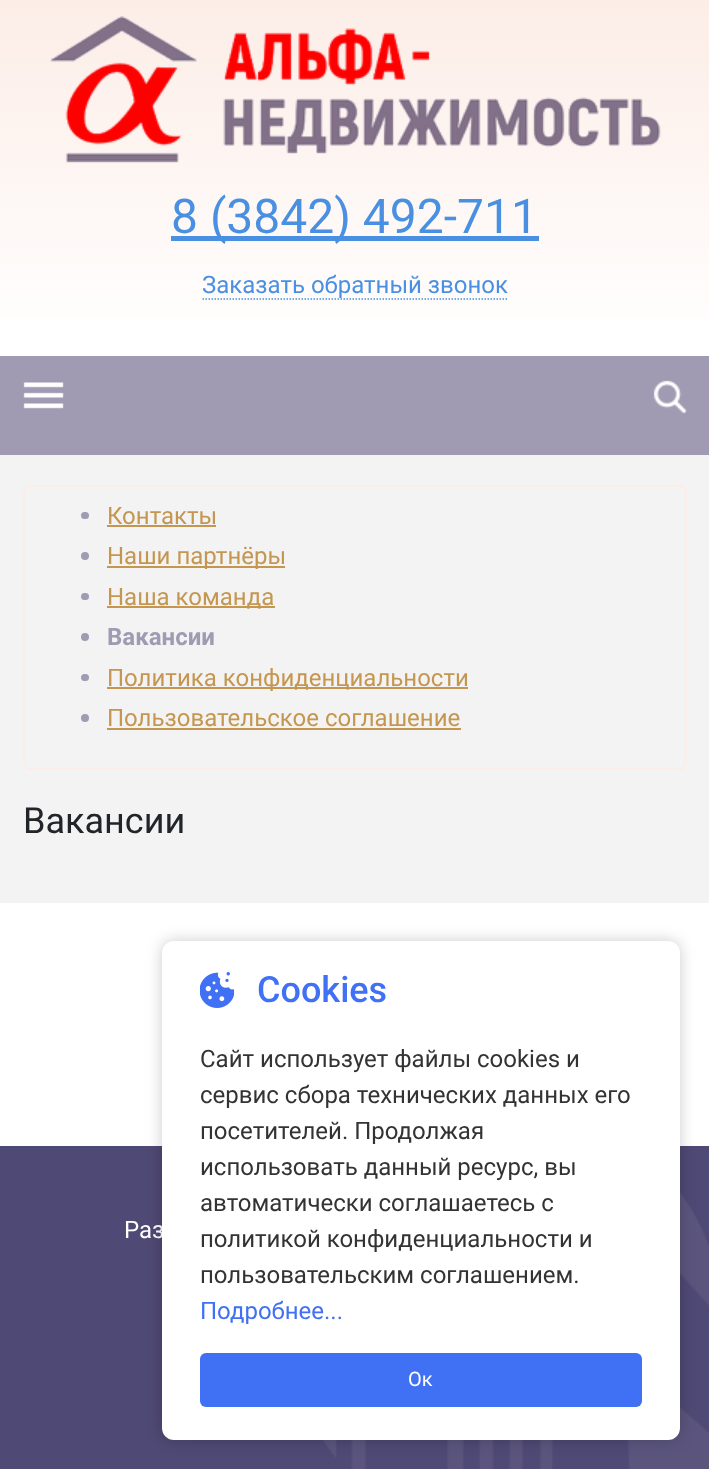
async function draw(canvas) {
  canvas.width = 709
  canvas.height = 1469
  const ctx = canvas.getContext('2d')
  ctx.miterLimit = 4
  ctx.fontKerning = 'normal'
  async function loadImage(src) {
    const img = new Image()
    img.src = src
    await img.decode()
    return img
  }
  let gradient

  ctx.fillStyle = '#fff'
  ctx.fillRect(0, 0, 709, 1469)
  gradient = ctx.createLinearGradient(0, 0, 0, 356)
  gradient.addColorStop(0, '#fcede7')
  gradient.addColorStop(1, '#fff')
  ctx.fillStyle = gradient
  ctx.fillRect(0, 0, 709, 319)
  ctx.drawImage(await loadImage('image0.png'), 50, 16, 611, 147)
  ctx.fillStyle = '#4a90e2'
  ctx.fillRect(171, 236, 368, 5)
  ctx.font = '48px Roboto'
  ctx.fillText('8 (3842) 492-711', 171, 233)
  ctx.font = '24px Roboto'
  ctx.fillText('Заказать обратный звонок', 202, 293)
  ctx.beginPath()
  ctx.moveTo(202.5, 299)
  ctx.lineTo(507, 299)
  ctx.strokeStyle = '#4a90e2'
  ctx.lineWidth = 1.5
  ctx.setLineDash([1.5, 1.5])
  ctx.stroke()
  ctx.fillStyle = '#a09ab2'
  ctx.fillRect(0, 356, 709, 99)
  ctx.drawImage(await loadImage('image1.png'), 23, 382, 41, 27)
  ctx.drawImage(await loadImage('image2.png'), 653, 380, 34, 34)
  ctx.fillStyle = '#f3f3f3'
  ctx.fillRect(0, 455, 709, 448)
  ctx.beginPath()
  ctx.roundRect(24, 486, 662, 283, 7)
  ctx.strokeStyle = '#fcede7'
  ctx.lineWidth = 2
  ctx.setLineDash([])
  ctx.stroke()
  ctx.fillStyle = '#a09ab2'
  ctx.beginPath()
  ctx.roundRect(81, 512, 8, 7, 3.5)
  ctx.fill()
  ctx.fillStyle = '#c49650'
  ctx.fillText('Контакты', 107, 524)
  ctx.fillRect(107, 525, 109, 2)
  ctx.fillStyle = '#a09ab2'
  ctx.beginPath()
  ctx.arc(85, 556, 4, 0, 2 * Math.PI)
  ctx.fill()
  ctx.fillStyle = '#c49650'
  ctx.fillRect(107, 566, 178, 2)
  ctx.fillText('Наши партнёры', 107, 564)
  ctx.fillStyle = '#a09ab2'
  ctx.beginPath()
  ctx.roundRect(81, 593, 8, 7, 3.5)
  ctx.fill()
  ctx.fillStyle = '#c49650'
  ctx.fillRect(107, 606, 168, 2)
  ctx.fillText('Наша команда', 107, 605)
  ctx.fillStyle = '#a09ab2'
  ctx.beginPath()
  ctx.arc(85, 637, 4, 0, 2 * Math.PI)
  ctx.fill()
  ctx.font = 'bold 24px Roboto'
  ctx.fillText('Вакансии', 107, 645)
  ctx.beginPath()
  ctx.roundRect(81, 674, 8, 7, 3.5)
  ctx.fill()
  ctx.fillStyle = '#c49650'
  ctx.fillRect(107, 687, 361, 2)
  ctx.font = '24px Roboto'
  ctx.fillText('Политика конфиденциальности', 107, 686)
  ctx.fillStyle = '#a09ab2'
  ctx.beginPath()
  ctx.arc(85, 718, 4, 0, 2 * Math.PI)
  ctx.fill()
  ctx.fillStyle = '#c49650'
  ctx.fillText('Пользовательское соглашение', 107, 726)
  ctx.fillRect(107, 728, 354, 2)
  ctx.font = '36px Roboto'
  ctx.fillStyle = '#212529'
  ctx.fillText('Вакансии', 23, 833)
  ctx.fillStyle = '#4f4975'
  ctx.fillRect(0, 1146, 709, 323)
  ctx.drawImage(await loadImage('image3.png'), 323, 1192, 386, 277)
  ctx.font = '24px Roboto'
  ctx.fillStyle = '#fff'
  ctx.fillText('Раз', 124, 1238)
  ctx.fillStyle = '#00000033'
  ctx.filter = 'blur(7.5px)'
  ctx.beginPath()
  ctx.roundRect(162, 941, 518, 499, 12)
  ctx.fill()
  ctx.filter = 'none'
  ctx.fillStyle = '#fff'
  ctx.beginPath()
  ctx.roundRect(162, 941, 518, 499, 12)
  ctx.fill()
  ctx.drawImage(await loadImage('image4.png'), 200, 972, 34, 36)
  ctx.font = '500 36px Roboto'
  ctx.fillStyle = '#4070f4'
  ctx.fillText('Cookies', 257, 1002)
  ctx.font = '24px Roboto'
  ctx.fillStyle = '#333'
  ctx.fillText('Сайт использует файлы cookies и', 200, 1067)
  ctx.fillText('сервис сбора технических данных его', 200, 1103)
  ctx.fillText('посетителей. Продолжая', 200, 1139)
  ctx.fillText('использовать данный ресурс, вы', 200, 1175)
  ctx.fillText('автоматически соглашаетесь с', 200, 1211)
  ctx.fillText('политикой конфиденциальности и', 200, 1247)
  ctx.fillText('пользовательским соглашением.', 200, 1283)
  ctx.fillStyle = '#4070f4'
  ctx.fillText('Подробнее...', 200, 1319)
  ctx.beginPath()
  ctx.roundRect(200, 1353, 442, 54, 6)
  ctx.fill()
  ctx.font = '20px Roboto'
  ctx.fillStyle = '#fff'
  ctx.fillText('Ок', 408, 1386)
}

draw(document.querySelector('canvas'))
